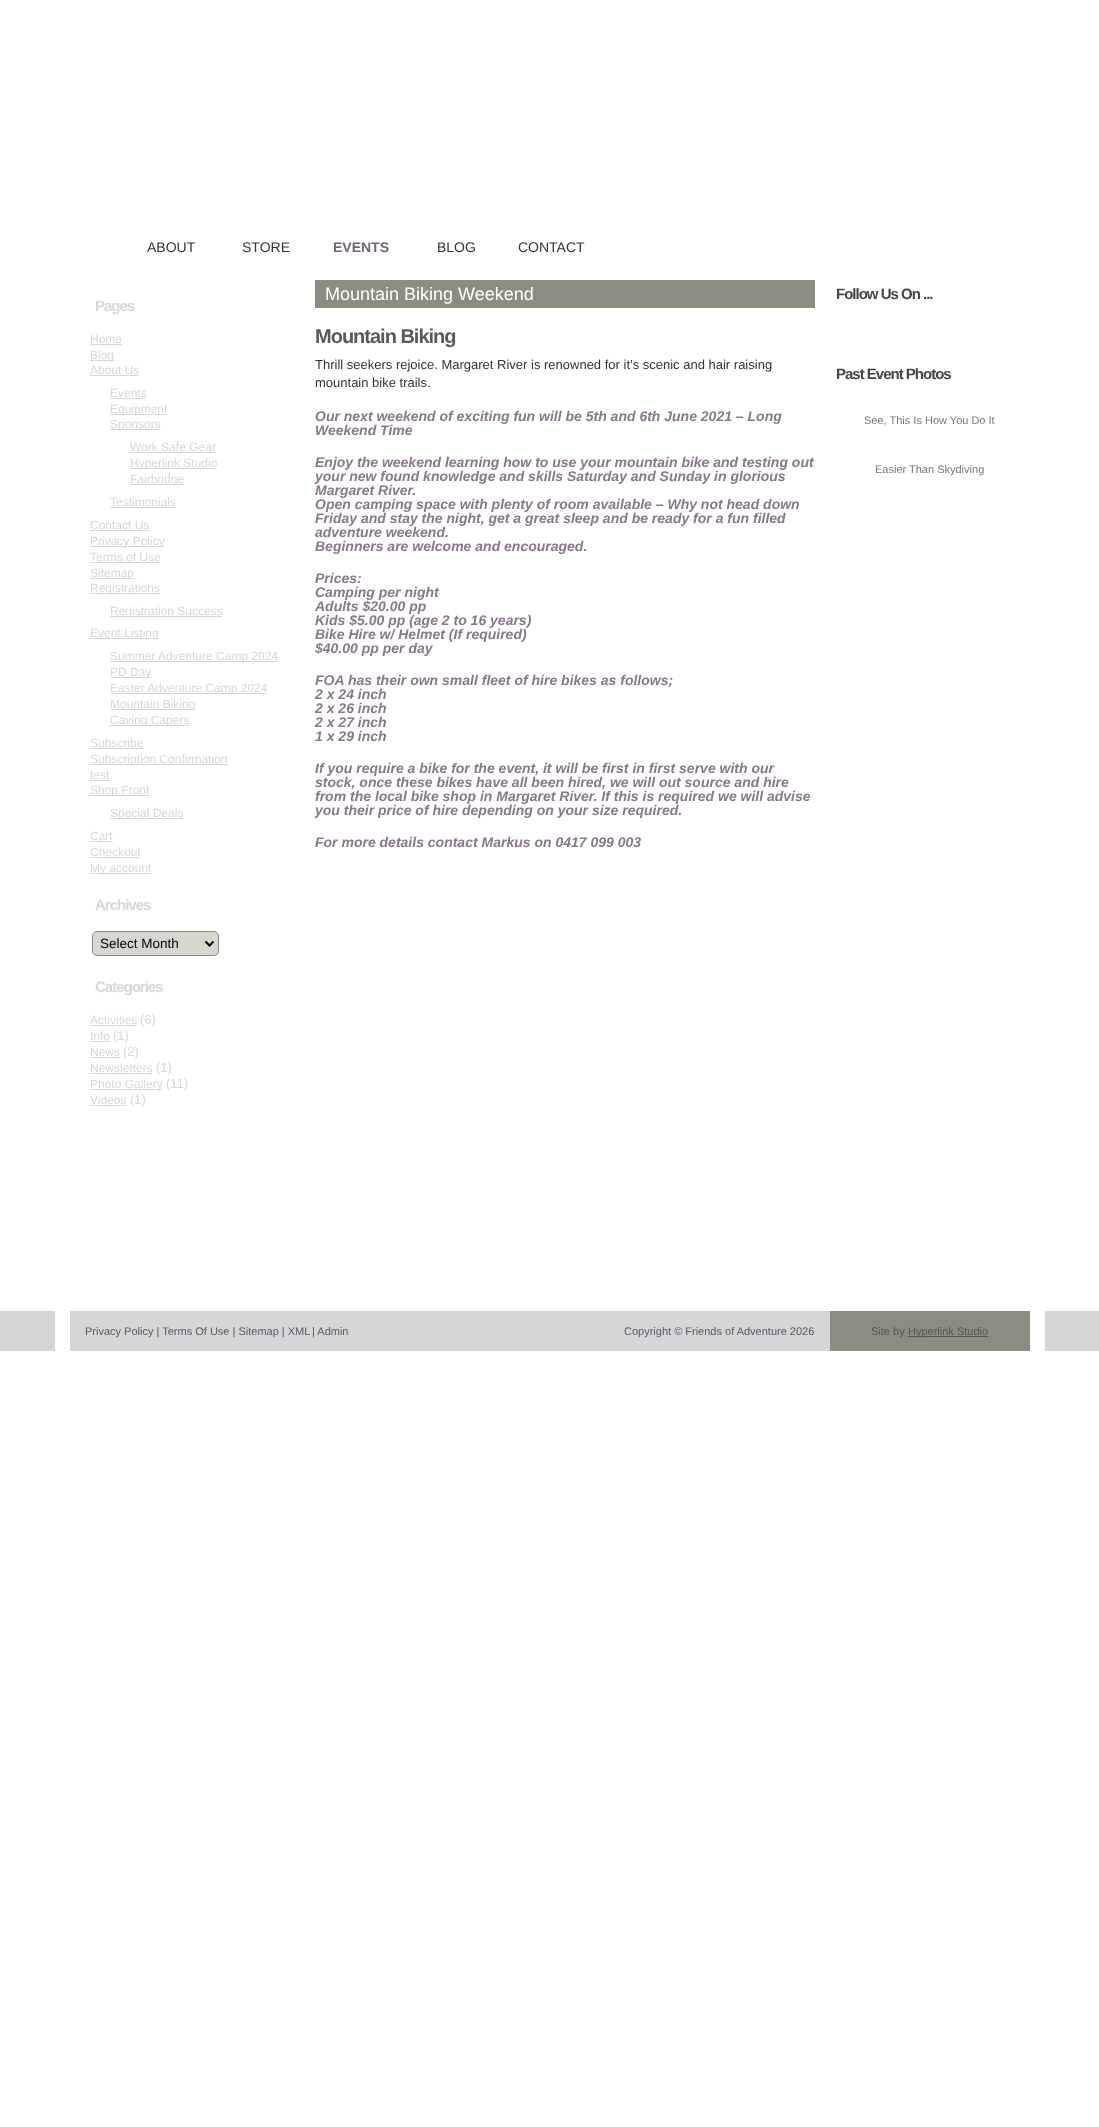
async function draw(canvas) {
  canvas.width = 1099
  canvas.height = 2127
  const ctx = canvas.getContext('2d')
  ctx.miterLimit = 4
  ctx.fontKerning = 'normal'

  ctx.fillStyle = '#fff'
  ctx.fillRect(0, 0, 1099, 2127)
  ctx.font = '14px Liberation Sans'
  ctx.fillStyle = '#333'
  ctx.fillText('ABOUT', 147, 252)
  ctx.fillText('STORE', 242, 252)
  ctx.font = 'bold 14px Liberation Sans'
  ctx.fillStyle = '#736575'
  ctx.fillText('EVENTS', 333, 252)
  ctx.font = '14px Liberation Sans'
  ctx.fillStyle = '#333'
  ctx.fillText('BLOG', 437, 252)
  ctx.fillText('CONTACT', 518, 252)
  ctx.letterSpacing = '-1px'
  ctx.font = 'bold 15px Liberation Sans'
  ctx.fillStyle = '#d7d7d6'
  ctx.fillText('Pages', 95, 311)
  ctx.letterSpacing = '0px'
  ctx.font = '12px Liberation Sans'
  ctx.fillText('Home', 90, 343)
  ctx.fillRect(90, 344, 32, 1)
  ctx.fillRect(90, 360, 24, 1)
  ctx.fillText('Blog', 90, 359)
  ctx.fillText('About Us', 90, 374)
  ctx.fillRect(90, 375, 49, 1)
  ctx.fillText('Events', 110, 397)
  ctx.fillRect(110, 398, 36, 1)
  ctx.fillRect(110, 414, 57, 1)
  ctx.fillText('Equipment', 110, 413)
  ctx.fillRect(110, 429, 50, 1)
  ctx.fillText('Sponsors', 110, 428)
  ctx.fillText('Work Safe Gear', 130, 451)
  ctx.fillRect(130, 452, 85, 1)
  ctx.fillRect(130, 468, 87, 1)
  ctx.fillText('Hyperlink Studio', 130, 467)
  ctx.fillRect(130, 484, 54, 1)
  ctx.fillText('Fairbridge', 130, 483)
  ctx.fillText('Testimonials', 110, 506)
  ctx.fillRect(110, 507, 66, 1)
  ctx.fillText('Contact Us', 90, 529)
  ctx.fillRect(90, 530, 59, 1)
  ctx.fillRect(90, 546, 74, 1)
  ctx.fillText('Privacy Policy', 90, 545)
  ctx.fillText('Terms of Use', 90, 561)
  ctx.fillRect(90, 562, 70, 1)
  ctx.fillRect(90, 578, 44, 1)
  ctx.fillText('Sitemap', 90, 577)
  ctx.fillRect(90, 593, 70, 1)
  ctx.fillText('Registrations', 90, 592)
  ctx.fillRect(110, 616, 112, 1)
  ctx.fillText('Registration Success', 110, 615)
  ctx.fillRect(90, 638, 68, 1)
  ctx.fillText('Event Listing', 90, 637)
  ctx.fillRect(110, 661, 168, 1)
  ctx.fillText('Summer Adventure Camp 2024', 110, 660)
  ctx.fillRect(110, 677, 41, 1)
  ctx.fillText('PD Day', 110, 676)
  ctx.fillRect(110, 693, 157, 1)
  ctx.fillText('Easter Adventure Camp 2024', 110, 692)
  ctx.fillRect(110, 709, 85, 1)
  ctx.fillText('Mountain Biking', 110, 708)
  ctx.fillRect(110, 725, 79, 1)
  ctx.fillText('Caving Capers', 110, 724)
  ctx.fillText('Subscribe', 90, 747)
  ctx.fillRect(90, 748, 53, 1)
  ctx.fillRect(90, 764, 137, 1)
  ctx.fillText('Subscription Confirmation', 90, 763)
  ctx.fillText('test', 90, 779)
  ctx.fillRect(90, 780, 19, 1)
  ctx.fillRect(90, 795, 59, 1)
  ctx.fillText('Shop Front', 90, 794)
  ctx.fillRect(110, 818, 73, 1)
  ctx.fillText('Special Deals', 110, 817)
  ctx.fillText('Cart', 90, 840)
  ctx.fillRect(90, 841, 22, 1)
  ctx.fillText('Checkout', 90, 856)
  ctx.fillRect(90, 857, 50, 1)
  ctx.fillRect(90, 873, 61, 1)
  ctx.fillText('My account', 90, 872)
  ctx.letterSpacing = '-1px'
  ctx.font = 'bold 15px Liberation Sans'
  ctx.fillText('Archives', 95, 910)
  ctx.fillStyle = '#d6d8ce'
  ctx.beginPath()
  ctx.roundRect(92.5, 931.5, 126, 24, 4.5)
  ctx.fill()
  ctx.strokeStyle = '#8b8d80'
  ctx.stroke()
  ctx.beginPath()
  ctx.moveTo(205.5, 941.5)
  ctx.lineTo(209.5, 945.5)
  ctx.lineTo(213.5, 941.5)
  ctx.strokeStyle = '#000'
  ctx.lineWidth = 2
  ctx.stroke()
  ctx.letterSpacing = '0px'
  ctx.font = '13.5px Liberation Sans'
  ctx.fillStyle = '#000'
  ctx.fillText('Select Month', 100, 948)
  ctx.letterSpacing = '-1px'
  ctx.font = 'bold 15px Liberation Sans'
  ctx.fillStyle = '#d7d7d6'
  ctx.fillText('Categories', 95, 992)
  ctx.letterSpacing = '0px'
  ctx.font = '12px Liberation Sans'
  ctx.fillText('Activities', 90, 1024)
  ctx.fillRect(90, 1025, 47, 1)
  ctx.font = '13px Liberation Sans'
  ctx.fillText('(6)', 140, 1024)
  ctx.font = '12px Liberation Sans'
  ctx.fillText('Info', 90, 1040)
  ctx.fillRect(90, 1041, 20, 1)
  ctx.font = '13px Liberation Sans'
  ctx.fillText('(1)', 113, 1040)
  ctx.font = '12px Liberation Sans'
  ctx.fillText('News', 90, 1056)
  ctx.fillRect(90, 1057, 30, 1)
  ctx.font = '13px Liberation Sans'
  ctx.fillText('(2)', 123, 1056)
  ctx.font = '12px Liberation Sans'
  ctx.fillText('Newsletters', 90, 1072)
  ctx.fillRect(90, 1073, 62, 1)
  ctx.font = '13px Liberation Sans'
  ctx.fillText('(1)', 156, 1072)
  ctx.fillRect(90, 1089, 72, 1)
  ctx.font = '12px Liberation Sans'
  ctx.fillText('Photo Gallery', 90, 1088)
  ctx.font = '13px Liberation Sans'
  ctx.fillText('(11)', 166, 1088)
  ctx.font = '12px Liberation Sans'
  ctx.fillText('Videos', 90, 1104)
  ctx.fillRect(90, 1105, 36, 1)
  ctx.font = '13px Liberation Sans'
  ctx.fillText('(1)', 130, 1104)
  ctx.fillStyle = '#8b8d80'
  ctx.fillRect(315, 280, 500, 28)
  ctx.font = '18px Liberation Sans'
  ctx.fillStyle = '#fff'
  ctx.fillText('Mountain Biking Weekend', 325, 300)
  ctx.letterSpacing = '-1px'
  ctx.font = 'bold 20px Liberation Sans'
  ctx.fillStyle = '#5e565f'
  ctx.fillText('Mountain Biking', 315, 343)
  ctx.letterSpacing = '0px'
  ctx.font = '13px Liberation Sans'
  ctx.fillStyle = '#333'
  ctx.fillText('Thrill seekers rejoice. Margaret River is renowned for it’s scenic and hair raising', 315, 369)
  ctx.fillText('mountain bike trails.', 315, 387)
  ctx.font = 'italic bold 14px Liberation Sans'
  ctx.fillStyle = '#89778b'
  ctx.fillText('Our next weekend of exciting fun will be 5th and 6th June 2021 – Long', 315, 421)
  ctx.fillText('Weekend Time', 315, 435)
  ctx.fillText('Enjoy the weekend learning how to use your mountain bike and testing out', 315, 467)
  ctx.fillText('your new found knowledge and skills Saturday and Sunday in glorious', 315, 481)
  ctx.fillText('Margaret River.', 315, 495)
  ctx.fillText('Open camping space with plenty of room available – Why not head down', 315, 509)
  ctx.fillText('Friday and stay the night, get a great sleep and be ready for a fun filled', 315, 523)
  ctx.fillText('adventure weekend.', 315, 537)
  ctx.fillText('Beginners are welcome and encouraged.', 315, 551)
  ctx.fillText('Prices:', 315, 583)
  ctx.fillText('Camping per night', 315, 597)
  ctx.fillText('Adults $20.00 pp', 315, 611)
  ctx.fillText('Kids $5.00 pp (age 2 to 16 years)', 315, 625)
  ctx.fillText('Bike Hire w/ Helmet (If required)', 315, 639)
  ctx.fillText('$40.00 pp per day', 315, 653)
  ctx.fillText('FOA has their own small fleet of hire bikes as follows;', 315, 685)
  ctx.fillText('2 x 24 inch', 315, 699)
  ctx.fillText('2 x 26 inch', 315, 713)
  ctx.fillText('2 x 27 inch', 315, 727)
  ctx.fillText('1 x 29 inch', 315, 741)
  ctx.fillText('If you require a bike for the event, it will be first in first serve with our', 315, 773)
  ctx.fillText('stock, once these bikes have all been hired, we will out source and hire', 315, 787)
  ctx.fillText('from the local bike shop in Margaret River. If this is required we will advise', 315, 801)
  ctx.fillText('you their price of hire depending on your size required.', 315, 815)
  ctx.fillText('For more details contact Markus on 0417 099 003', 315, 847)
  ctx.letterSpacing = '-1px'
  ctx.font = 'bold 15px Liberation Sans'
  ctx.fillStyle = '#474247'
  ctx.fillText('Follow Us On ...', 836, 299)
  ctx.fillText('Past Event Photos', 836, 379)
  ctx.letterSpacing = '0px'
  ctx.font = '11px Liberation Sans'
  ctx.fillStyle = '#77786e'
  ctx.fillText('See, This Is How You Do It', 864, 424)
  ctx.fillText('Easier Than Skydiving', 875, 473)
  ctx.fillStyle = '#d6d6d8'
  ctx.fillRect(0, 1311, 1099, 40)
  ctx.fillStyle = '#fff'
  ctx.fillRect(55, 1311, 990, 40)
  ctx.fillStyle = '#d6d6d8'
  ctx.fillRect(70, 1311, 760, 40)
  ctx.fillStyle = '#5e565f'
  ctx.fillText('Privacy Policy | Terms Of Use | Sitemap | XML', 85, 1335)
  ctx.fillText('| Admin', 312, 1335)
  ctx.fillText('Copyright © Friends of Adventure 2026', 624, 1335)
  ctx.fillStyle = '#8b8d80'
  ctx.fillRect(830, 1311, 200, 40)
  ctx.fillStyle = '#55564e'
  ctx.fillText('Site by', 871, 1335)
  ctx.fillRect(908, 1336, 80, 1)
  ctx.fillText('Hyperlink Studio', 908, 1335)
}

draw(document.querySelector('canvas'))
